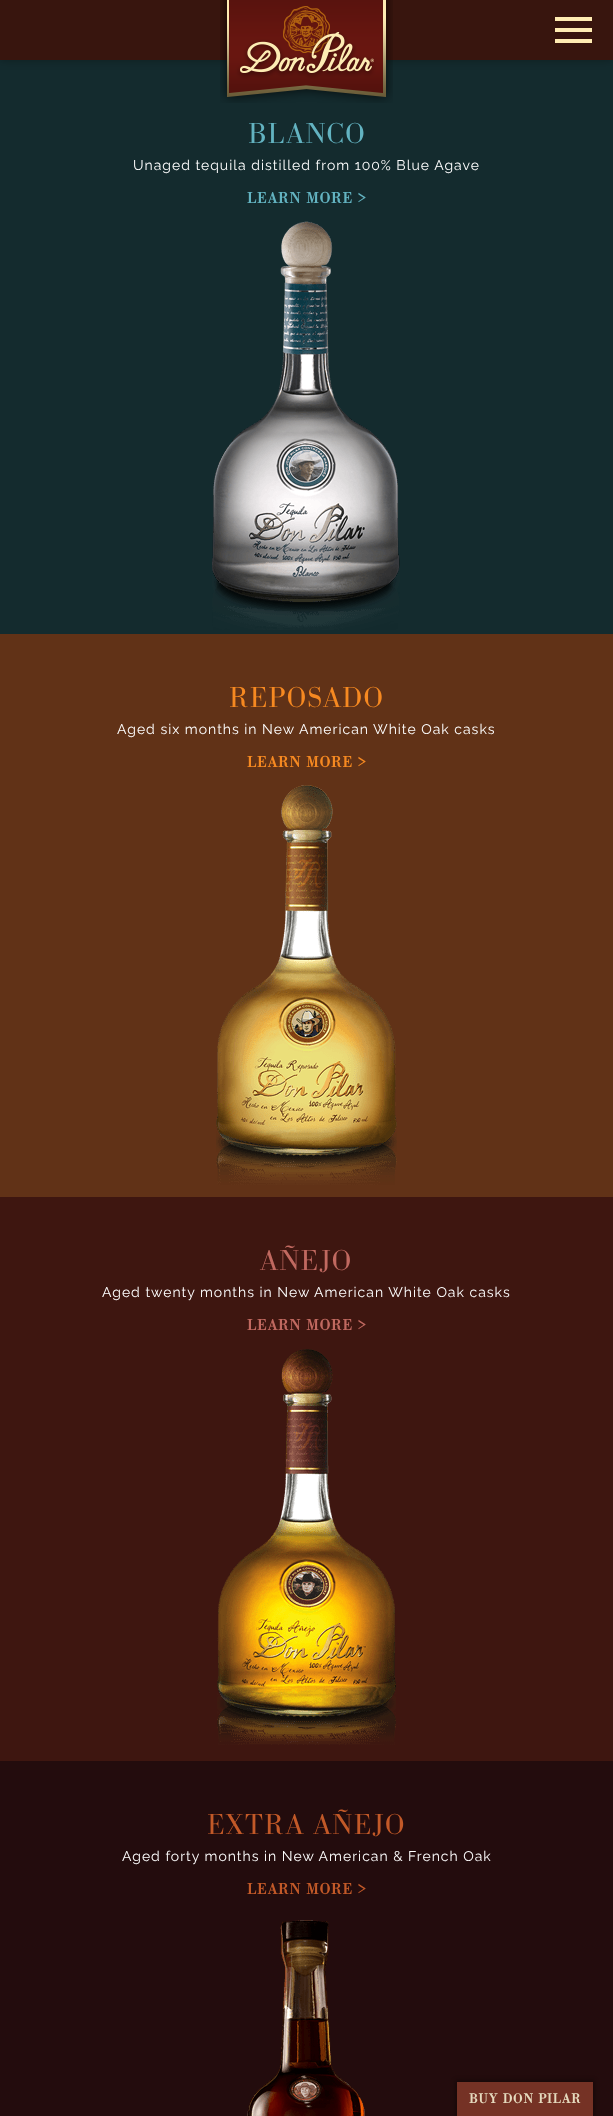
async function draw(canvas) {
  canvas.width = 613
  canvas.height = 2116
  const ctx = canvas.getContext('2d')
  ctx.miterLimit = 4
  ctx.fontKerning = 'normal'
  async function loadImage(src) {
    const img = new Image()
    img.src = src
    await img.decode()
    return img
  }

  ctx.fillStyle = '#142b2e'
  ctx.fillRect(0, 0, 613, 2116)
  ctx.fillStyle = '#0000004d'
  ctx.filter = 'blur(5px)'
  ctx.beginPath()
  ctx.rect(0, 0, 613, 60)
  ctx.fill()
  ctx.filter = 'none'
  ctx.fillStyle = '#38150e'
  ctx.fillRect(0, 0, 613, 60)
  ctx.drawImage(await loadImage('image0.png'), 220, 0, 173, 103)
  ctx.fillStyle = '#ffecb3'
  ctx.fillRect(555, 17, 37, 4)
  ctx.fillRect(555, 28, 37, 4)
  ctx.fillRect(555, 39, 37, 4)
  ctx.letterSpacing = '1px'
  ctx.font = '300 30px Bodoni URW'
  ctx.fillStyle = '#63b3c1'
  ctx.fillText('BLANCO', 248, 143)
  ctx.font = '14px Raleway'
  ctx.fillStyle = '#fff'
  ctx.fillText('Unaged tequila distilled from 100% Blue Agave', 133, 170)
  ctx.font = 'bold 16px Bodoni URW'
  ctx.fillStyle = '#63b3c1'
  ctx.fillText('LEARN MORE >', 247, 203)
  ctx.drawImage(await loadImage('image1.png'), 212, 221, 188, 409)
  ctx.fillStyle = '#613217'
  ctx.fillRect(0, 634, 613, 563)
  ctx.font = '300 30px Bodoni URW'
  ctx.fillStyle = '#f68921'
  ctx.fillText('REPOSADO', 229, 707)
  ctx.font = '14px Raleway'
  ctx.fillStyle = '#fff'
  ctx.fillText('Aged six months in New American White Oak casks', 117, 734)
  ctx.font = 'bold 16px Bodoni URW'
  ctx.fillStyle = '#f68921'
  ctx.fillText('LEARN MORE >', 247, 767)
  ctx.drawImage(await loadImage('image2.png'), 216, 785, 181, 400)
  ctx.fillStyle = '#3e1610'
  ctx.fillRect(0, 1197, 613, 564)
  ctx.font = '300 30px Bodoni URW'
  ctx.fillStyle = '#c16960'
  ctx.fillText('AÑEJO', 260, 1270)
  ctx.font = '14px Raleway'
  ctx.fillStyle = '#fff'
  ctx.fillText('Aged twenty months in New American White Oak casks', 102, 1297)
  ctx.font = 'bold 16px Bodoni URW'
  ctx.fillStyle = '#c16960'
  ctx.fillText('LEARN MORE >', 247, 1330)
  ctx.drawImage(await loadImage('image3.png'), 217, 1349, 179, 396)
  ctx.fillStyle = '#230c0d'
  ctx.fillRect(0, 1761, 613, 355)
  ctx.font = '300 30px Bodoni URW'
  ctx.fillStyle = '#c25928'
  ctx.fillText('EXTRA AÑEJO', 207, 1834)
  ctx.font = '14px Raleway'
  ctx.fillStyle = '#fff'
  ctx.fillText('Aged forty months in New American & French Oak', 122, 1861)
  ctx.font = 'bold 16px Bodoni URW'
  ctx.fillStyle = '#c25928'
  ctx.fillText('LEARN MORE >', 247, 1894)
  ctx.drawImage(await loadImage('image4.png'), 247, 1920, 118, 196)
  ctx.fillStyle = '#00000052'
  ctx.filter = 'blur(2px)'
  ctx.beginPath()
  ctx.rect(455, 2080, 140, 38)
  ctx.fill()
  ctx.filter = 'none'
  ctx.fillStyle = '#753225'
  ctx.fillRect(457, 2082, 136, 34)
  ctx.font = 'bold 14px Bodoni URW'
  ctx.fillStyle = '#e5dabe'
  ctx.fillText('BUY DON PILAR', 469, 2103)
}

draw(document.querySelector('canvas'))
